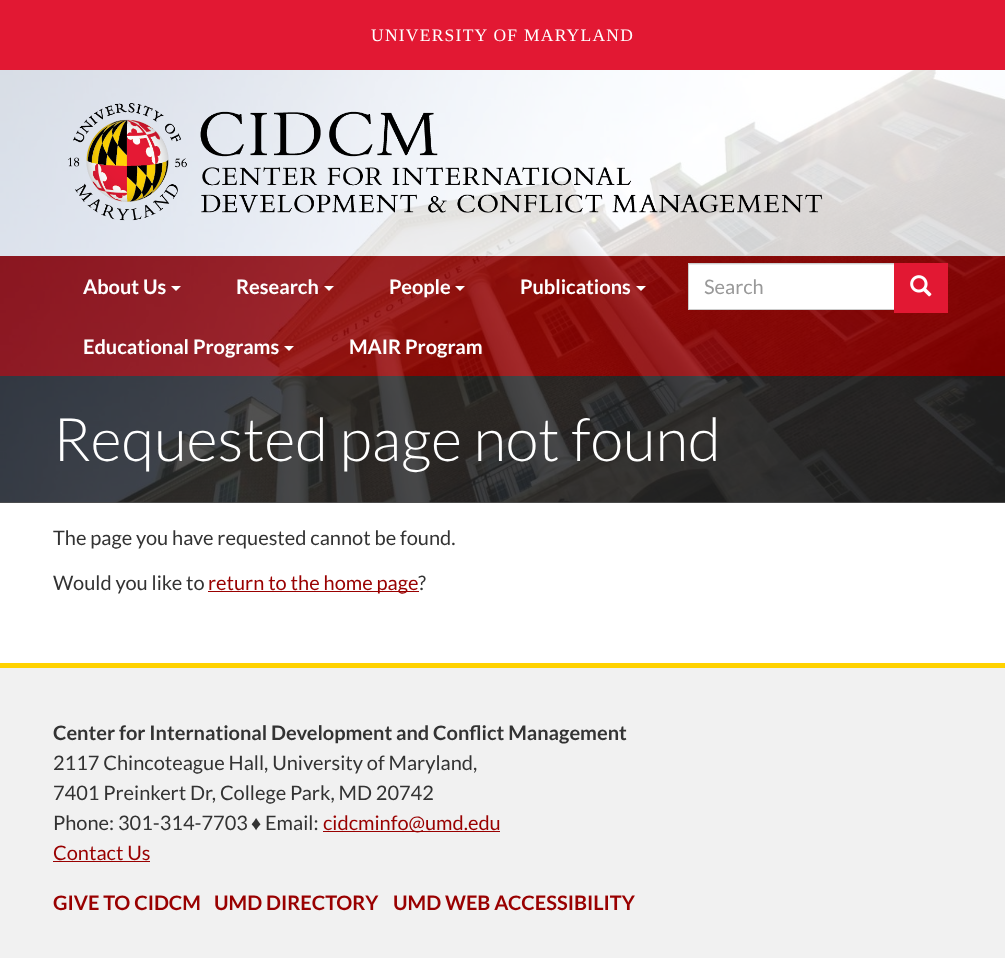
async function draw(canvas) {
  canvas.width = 1005
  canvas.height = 958
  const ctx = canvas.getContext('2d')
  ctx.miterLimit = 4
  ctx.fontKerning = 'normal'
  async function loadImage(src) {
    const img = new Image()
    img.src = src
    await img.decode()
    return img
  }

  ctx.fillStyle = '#fff'
  ctx.fillRect(0, 0, 1005, 958)
  ctx.fillStyle = '#e21833'
  ctx.fillRect(0, 0, 1005, 70)
  ctx.letterSpacing = '1.25px'
  ctx.font = '17.5px Liberation Serif'
  ctx.fillStyle = '#fff'
  ctx.fillText('UNIVERSITY OF MARYLAND', 371, 41)
  ctx.drawImage(await loadImage('image0.png'), 0, 70, 1005, 433)
  ctx.fillStyle = '#ffffffcc'
  ctx.fillRect(0, 70, 1005, 186)
  ctx.drawImage(await loadImage('image1.png'), 68, 103, 755, 118)
  ctx.fillStyle = '#990000cc'
  ctx.fillRect(0, 256, 1005, 120)
  ctx.letterSpacing = '0px'
  ctx.font = 'bold 20px Lato'
  ctx.fillStyle = '#fff'
  ctx.fillText('About Us', 83, 294)
  ctx.beginPath()
  ctx.moveTo(171, 286)
  ctx.lineTo(181, 286)
  ctx.lineTo(176, 291)
  ctx.closePath()
  ctx.fill()
  ctx.fillText('Research', 236, 294)
  ctx.beginPath()
  ctx.moveTo(324, 286)
  ctx.lineTo(334, 286)
  ctx.lineTo(329, 291)
  ctx.closePath()
  ctx.fill()
  ctx.fillText('People', 389, 294)
  ctx.beginPath()
  ctx.moveTo(455, 286)
  ctx.lineTo(465, 286)
  ctx.lineTo(460, 291)
  ctx.closePath()
  ctx.fill()
  ctx.fillText('Publications', 520, 294)
  ctx.beginPath()
  ctx.moveTo(636, 286)
  ctx.lineTo(646, 286)
  ctx.lineTo(641, 291)
  ctx.closePath()
  ctx.fill()
  ctx.fillText('Educational Programs', 83, 354)
  ctx.beginPath()
  ctx.moveTo(284, 346)
  ctx.lineTo(294, 346)
  ctx.lineTo(289, 351)
  ctx.closePath()
  ctx.fill()
  ctx.fillText('MAIR Program', 349, 354)
  ctx.fillRect(689, 265, 205, 44)
  ctx.fillStyle = '#ececec'
  ctx.fillRect(689, 264, 205, 1)
  ctx.strokeStyle = '#ccc'
  ctx.strokeRect(688.5, 263.5, 206, 46)
  ctx.font = '20px Lato'
  ctx.fillStyle = '#999'
  ctx.fillText('Search', 704, 294)
  ctx.fillStyle = '#e21833'
  ctx.fillRect(894, 263, 54, 50)
  ctx.drawImage(await loadImage('image2.png'), 910, 275, 22, 22)
  ctx.fillStyle = '#252525cc'
  ctx.fillRect(0, 376, 1005, 127)
  ctx.font = '300 60px Lato'
  ctx.fillStyle = '#fff'
  ctx.fillText('Requested page not found', 53, 461)
  ctx.font = '20px Lato'
  ctx.fillStyle = '#333'
  ctx.fillText('The page you have requested cannot be found.', 53, 545)
  ctx.fillText('Would you like to', 53, 590)
  ctx.fillStyle = '#900'
  ctx.fillRect(208, 591, 211, 1)
  ctx.fillText('return to the home page', 208, 590)
  ctx.fillStyle = '#333'
  ctx.fillText('?', 418, 590)
  ctx.fillStyle = '#f1f1f1'
  ctx.fillRect(0, 668, 1005, 290)
  ctx.fillStyle = '#ffd200'
  ctx.fillRect(0, 663, 1005, 5)
  ctx.font = 'bold 20px Lato'
  ctx.fillStyle = '#333'
  ctx.fillText('Center for International Development and Conflict Management', 53, 740)
  ctx.font = '20px Lato'
  ctx.fillText('2117 Chincoteague Hall, University of Maryland,', 53, 770)
  ctx.fillText('7401 Preinkert Dr, College Park, MD 20742', 53, 800)
  ctx.fillText('Phone: 301-314-7703', 53, 830)
  ctx.font = '20px Liberation Sans'
  ctx.fillText('♦', 251, 830)
  ctx.font = '20px Lato'
  ctx.fillText('Email:', 265, 830)
  ctx.fillStyle = '#900'
  ctx.fillRect(323, 831, 177, 1)
  ctx.fillText('cidcminfo@umd.edu', 323, 830)
  ctx.fillText('Contact Us', 53, 860)
  ctx.fillRect(53, 861, 97, 1)
  ctx.font = 'bold 20px Lato'
  ctx.fillText('GIVE TO CIDCM', 53, 910)
  ctx.fillText('UMD DIRECTORY', 214, 910)
  ctx.fillText('UMD WEB ACCESSIBILITY', 393, 910)
}

draw(document.querySelector('canvas'))
